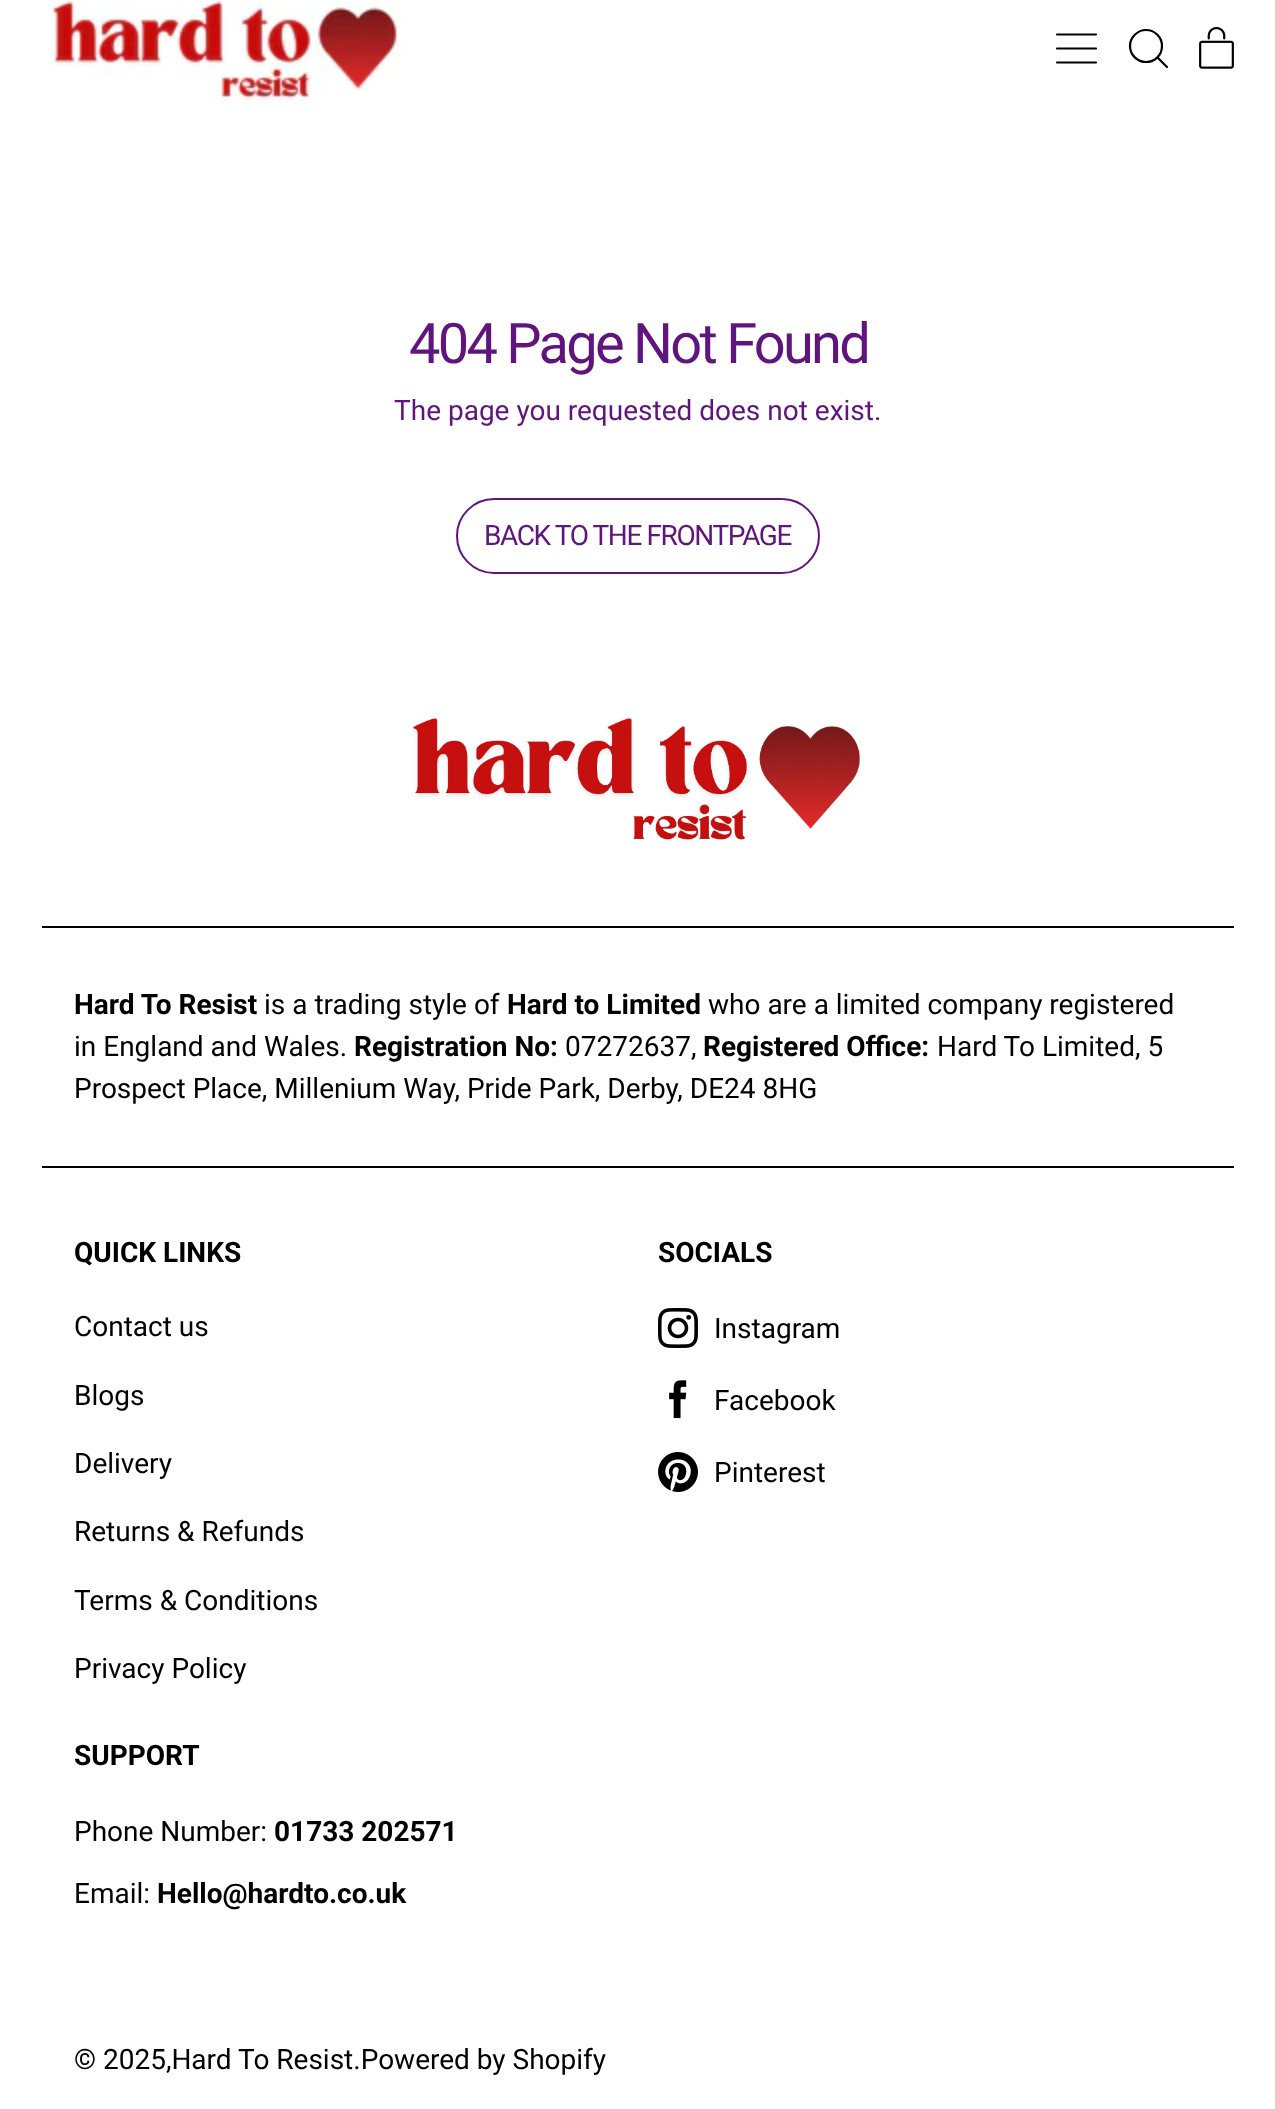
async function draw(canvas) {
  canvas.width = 1275
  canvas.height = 2109
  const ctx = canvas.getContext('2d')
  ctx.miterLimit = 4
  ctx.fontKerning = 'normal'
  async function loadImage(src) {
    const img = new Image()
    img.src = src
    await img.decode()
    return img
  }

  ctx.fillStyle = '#fff'
  ctx.fillRect(0, 0, 1275, 2109)
  ctx.drawImage(await loadImage('image0.png'), 51, 0, 353, 106)
  ctx.beginPath()
  ctx.moveTo(1096, 62.5)
  ctx.lineTo(1057, 62.5)
  ctx.moveTo(1096, 48.5)
  ctx.lineTo(1057, 48.5)
  ctx.moveTo(1096, 34.5)
  ctx.lineTo(1057, 34.5)
  ctx.strokeStyle = '#000'
  ctx.lineWidth = 2.2
  ctx.lineCap = 'round'
  ctx.lineJoin = 'round'
  ctx.stroke()
  ctx.beginPath()
  ctx.moveTo(1130, 46)
  ctx.bezierCurveTo(1130, 55, 1137.5, 62, 1146, 62)
  ctx.bezierCurveTo(1155, 62, 1162, 55, 1162, 46)
  ctx.bezierCurveTo(1162, 37.5, 1155, 30, 1146, 30)
  ctx.bezierCurveTo(1137.5, 30, 1130, 37.5, 1130, 46)
  ctx.closePath()
  ctx.moveTo(1167, 67)
  ctx.lineTo(1157.5, 57.5)
  ctx.stroke()
  ctx.drawImage(await loadImage('image1.png'), 1199, 27, 35, 42)
  ctx.letterSpacing = '-2.75px'
  ctx.font = '56px Roboto'
  ctx.fillStyle = '#60147d'
  ctx.fillText('404 Page Not Found', 409, 363)
  ctx.letterSpacing = '0px'
  ctx.font = '28px Roboto'
  ctx.fillText('The page you requested does not exist.', 394, 420)
  ctx.beginPath()
  ctx.roundRect(457, 499, 362, 74, 37)
  ctx.strokeStyle = '#60147d'
  ctx.lineWidth = 2
  ctx.lineJoin = 'miter'
  ctx.stroke()
  ctx.letterSpacing = '-1.4px'
  ctx.fillText('BACK TO THE FRONTPAGE', 484, 545)
  ctx.fillStyle = '#000'
  ctx.fillRect(42, 926, 1192, 2)
  ctx.drawImage(await loadImage('image2.png'), 413, 717, 447, 123)
  ctx.letterSpacing = '0px'
  ctx.font = 'bold 28px Roboto'
  ctx.fillText('Hard To Resist', 74, 1014)
  ctx.font = '28px Roboto'
  ctx.fillText('is a trading style of', 264, 1014)
  ctx.font = 'bold 28px Roboto'
  ctx.fillText('Hard to Limited', 507, 1014)
  ctx.font = '28px Roboto'
  ctx.fillText('who are a limited company registered', 708, 1014)
  ctx.fillText('in England and Wales.', 74, 1056)
  ctx.font = 'bold 28px Roboto'
  ctx.fillText('Registration No:', 354, 1056)
  ctx.font = '28px Roboto'
  ctx.fillText('07272637,', 565, 1056)
  ctx.font = 'bold 28px Roboto'
  ctx.fillText('Registered Office:', 703, 1056)
  ctx.font = '28px Roboto'
  ctx.fillText('Hard To Limited, 5', 937, 1056)
  ctx.fillText('Prospect Place, Millenium Way, Pride Park, Derby, DE24 8HG', 74, 1098)
  ctx.fillRect(42, 1166, 1192, 2)
  ctx.font = 'bold 28px Roboto'
  ctx.fillText('QUICK LINKS', 74, 1262)
  ctx.font = '28px Roboto'
  ctx.fillText('Contact us', 74, 1336)
  ctx.fillText('Blogs', 74, 1405)
  ctx.fillText('Delivery', 74, 1473)
  ctx.fillText('Returns & Refunds', 74, 1541)
  ctx.fillText('Terms & Conditions', 74, 1610)
  ctx.fillText('Privacy Policy', 74, 1678)
  ctx.font = 'bold 28px Roboto'
  ctx.fillText('SOCIALS', 658, 1262)
  ctx.drawImage(await loadImage('image3.png'), 658, 1308, 40, 40)
  ctx.font = '28px Roboto'
  ctx.fillText('Instagram', 714, 1338)
  ctx.drawImage(await loadImage('image4.png'), 669, 1380, 18, 39)
  ctx.fillText('Facebook', 714, 1410)
  ctx.drawImage(await loadImage('image5.png'), 658, 1452, 40, 40)
  ctx.fillText('Pinterest', 714, 1482)
  ctx.font = 'bold 28px Roboto'
  ctx.fillText('SUPPORT', 74, 1765)
  ctx.font = '28px Roboto'
  ctx.fillText('Phone Number:', 74, 1841)
  ctx.font = 'bold 28px Roboto'
  ctx.fillText('01733 202571', 274, 1841)
  ctx.font = '28px Roboto'
  ctx.fillText('Email:', 74, 1903)
  ctx.font = 'bold 28px Roboto'
  ctx.fillText('Hello@hardto.co.uk', 157, 1903)
  ctx.font = '28px Roboto'
  ctx.fillText('© 2025,Hard To Resist.Powered by Shopify', 74, 2069)
}

draw(document.querySelector('canvas'))
